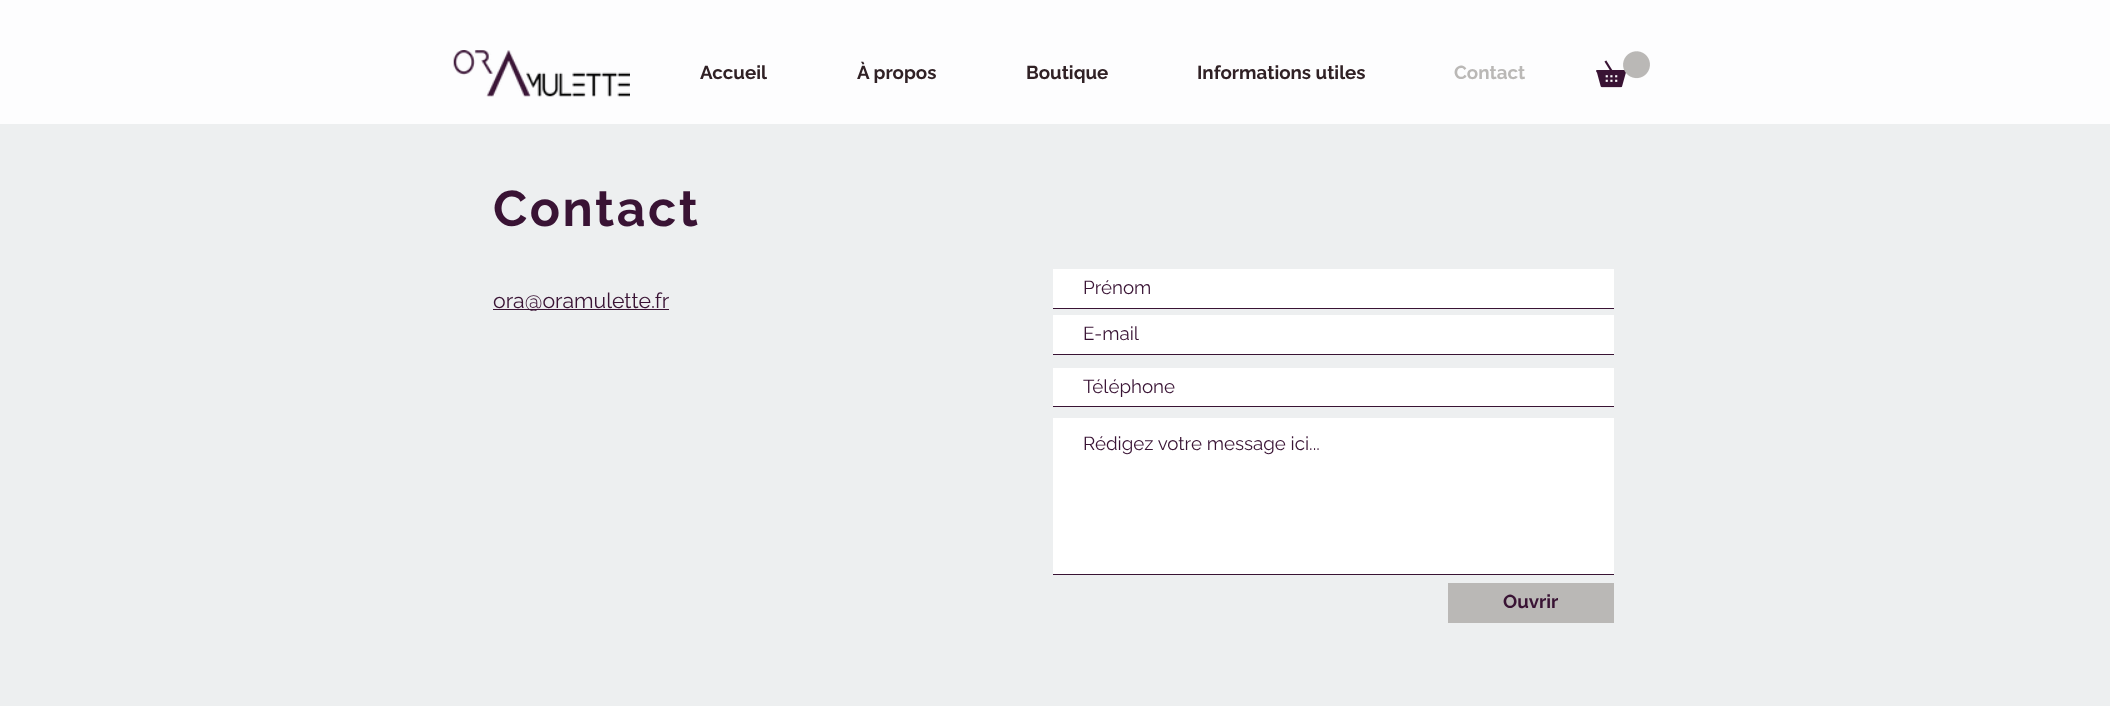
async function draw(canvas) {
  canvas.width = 2110
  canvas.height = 706
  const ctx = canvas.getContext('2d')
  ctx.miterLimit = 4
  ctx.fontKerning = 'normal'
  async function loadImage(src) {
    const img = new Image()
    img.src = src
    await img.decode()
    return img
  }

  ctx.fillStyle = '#edeff0'
  ctx.fillRect(0, 0, 2110, 706)
  ctx.fillStyle = '#fdfdfe'
  ctx.fillRect(0, 0, 2110, 124)
  ctx.drawImage(await loadImage('image0.png'), 453, 50, 177, 47)
  ctx.font = 'bold 18.75px Raleway'
  ctx.fillStyle = '#302125'
  ctx.fillText('Accueil', 700, 79)
  ctx.fillText('À propos', 857, 79)
  ctx.fillText('Boutique', 1026, 79)
  ctx.fillText('Informations utiles', 1197, 79)
  ctx.fillStyle = '#bab8b6'
  ctx.fillText('Contact', 1454, 79)
  ctx.drawImage(await loadImage('image1.png'), 1596, 51, 54, 37)
  ctx.letterSpacing = '2.5px'
  ctx.font = 'bold 50px Raleway'
  ctx.fillStyle = '#391334'
  ctx.fillText('Contact', 493, 226)
  ctx.fillRect(493, 309, 176, 1)
  ctx.letterSpacing = '0px'
  ctx.font = '21.25px Raleway'
  ctx.fillText('ora@oramulette.fr', 493, 308)
  ctx.fillStyle = '#fff'
  ctx.fillRect(1053, 269, 561, 39)
  ctx.fillStyle = '#391334'
  ctx.fillRect(1053, 308, 561, 1)
  ctx.font = '18.75px Raleway'
  ctx.fillText('Prénom', 1083, 294)
  ctx.fillStyle = '#fff'
  ctx.fillRect(1053, 315, 561, 39)
  ctx.fillStyle = '#391334'
  ctx.fillRect(1053, 354, 561, 1)
  ctx.fillText('E-mail', 1083, 340)
  ctx.fillStyle = '#fff'
  ctx.fillRect(1053, 368, 561, 38)
  ctx.fillStyle = '#391334'
  ctx.fillRect(1053, 406, 561, 1)
  ctx.fillText('Téléphone', 1083, 393)
  ctx.fillStyle = '#fff'
  ctx.fillRect(1053, 418, 561, 156)
  ctx.fillStyle = '#391334'
  ctx.fillRect(1053, 574, 561, 1)
  ctx.fillText('Rédigez votre message ici...', 1083, 450)
  ctx.fillStyle = '#bab8b6'
  ctx.fillRect(1448, 583, 166, 40)
  ctx.font = 'bold 18.75px Raleway'
  ctx.fillStyle = '#391334'
  ctx.fillText('Ouvrir', 1503, 608)
}

draw(document.querySelector('canvas'))
